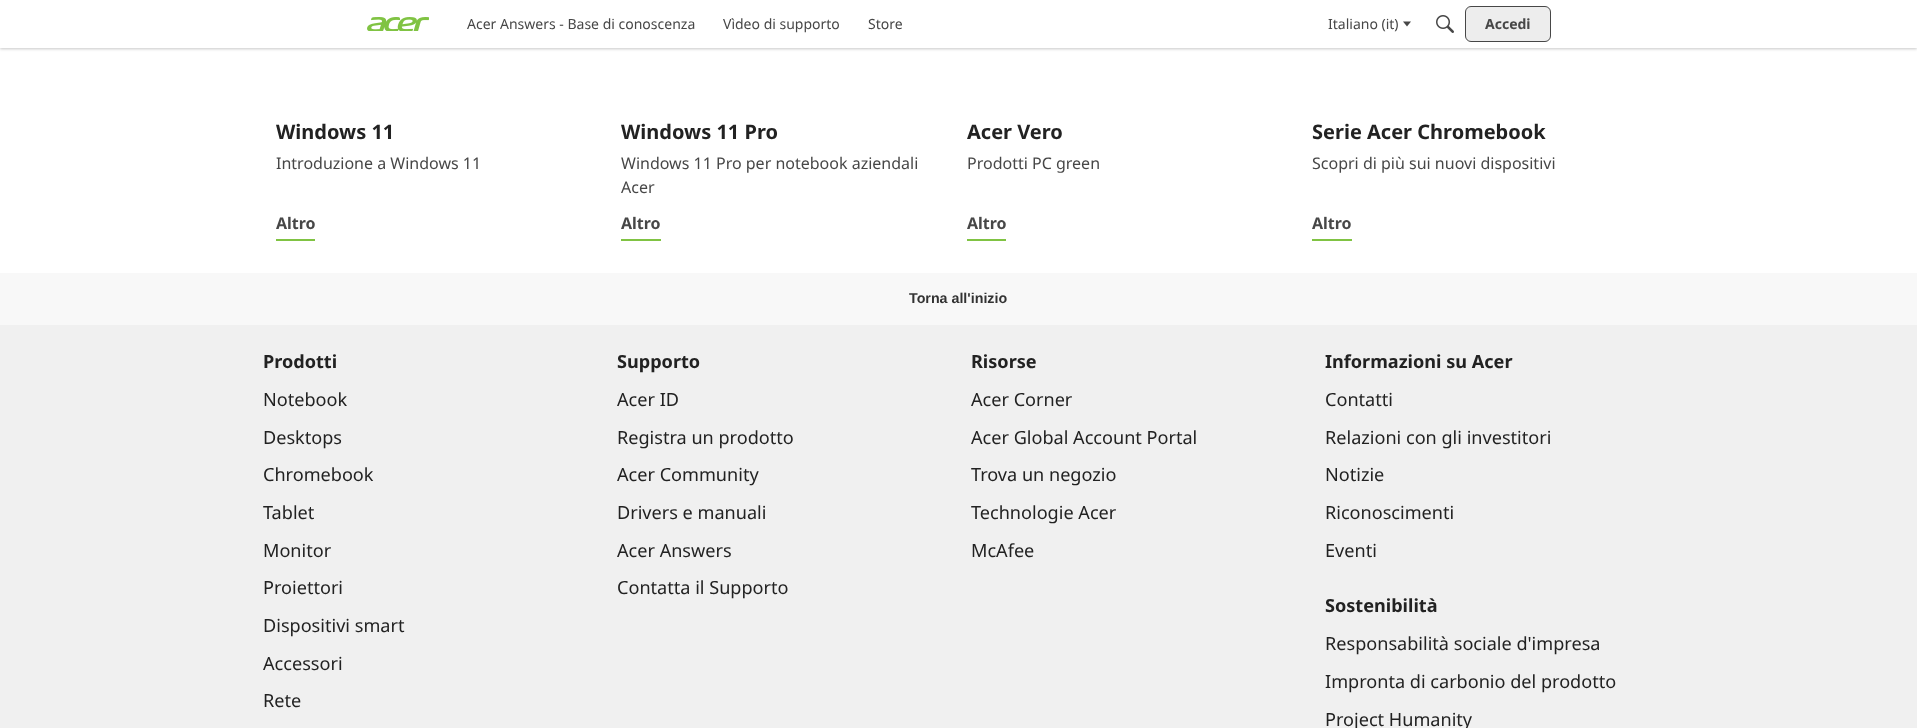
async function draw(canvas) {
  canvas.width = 1917
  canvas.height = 728
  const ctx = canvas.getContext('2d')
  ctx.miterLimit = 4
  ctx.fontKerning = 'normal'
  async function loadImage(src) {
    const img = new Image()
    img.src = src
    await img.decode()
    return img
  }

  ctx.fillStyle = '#fff'
  ctx.fillRect(0, 0, 1917, 728)
  ctx.fillStyle = '#00000038'
  ctx.filter = 'blur(1.5px)'
  ctx.beginPath()
  ctx.rect(0, 1, 1917, 48)
  ctx.fill()
  ctx.filter = 'none'
  ctx.fillStyle = '#fff'
  ctx.fillRect(0, 0, 1917, 48)
  ctx.drawImage(await loadImage('image0.png'), 367, 17, 62, 14)
  ctx.font = '14px Noto Sans'
  ctx.fillStyle = '#474747'
  ctx.fillText('Acer Answers - Base di conoscenza', 467, 29)
  ctx.fillText('Vìdeo di supporto', 723, 29)
  ctx.fillText('Store', 868, 29)
  ctx.fillText('Italiano (it)', 1328, 29)
  ctx.beginPath()
  ctx.moveTo(1403, 21.5)
  ctx.lineTo(1411, 21.5)
  ctx.lineTo(1407, 26.5)
  ctx.closePath()
  ctx.fill()
  ctx.drawImage(await loadImage('image1.png'), 1436, 15, 18, 18)
  ctx.fillStyle = '#ededed'
  ctx.beginPath()
  ctx.roundRect(1465.5, 6.5, 85, 35, 5.5)
  ctx.fill()
  ctx.strokeStyle = '#474747'
  ctx.stroke()
  ctx.font = 'bold 14px Noto Sans'
  ctx.fillStyle = '#474747'
  ctx.fillText('Accedi', 1485, 29)
  ctx.font = 'bold 20px Noto Sans'
  ctx.fillStyle = '#222'
  ctx.fillText('Windows 11', 276, 139)
  ctx.font = '16px Noto Sans'
  ctx.fillStyle = '#474747'
  ctx.fillText('Introduzione a Windows 11', 276, 169)
  ctx.fillStyle = '#80c343'
  ctx.fillRect(276, 239, 39, 2)
  ctx.font = 'bold 16px Noto Sans'
  ctx.fillStyle = '#474747'
  ctx.fillText('Altro', 276, 229)
  ctx.font = 'bold 20px Noto Sans'
  ctx.fillStyle = '#222'
  ctx.fillText('Windows 11 Pro', 621, 139)
  ctx.font = '16px Noto Sans'
  ctx.fillStyle = '#474747'
  ctx.fillText('Windows 11 Pro per notebook aziendali', 621, 169)
  ctx.fillText('Acer', 621, 193)
  ctx.fillStyle = '#80c343'
  ctx.fillRect(621, 239, 40, 2)
  ctx.font = 'bold 16px Noto Sans'
  ctx.fillStyle = '#474747'
  ctx.fillText('Altro', 621, 229)
  ctx.font = 'bold 20px Noto Sans'
  ctx.fillStyle = '#222'
  ctx.fillText('Acer Vero', 967, 139)
  ctx.font = '16px Noto Sans'
  ctx.fillStyle = '#474747'
  ctx.fillText('Prodotti PC green', 967, 169)
  ctx.fillStyle = '#80c343'
  ctx.fillRect(967, 239, 39, 2)
  ctx.font = 'bold 16px Noto Sans'
  ctx.fillStyle = '#474747'
  ctx.fillText('Altro', 967, 229)
  ctx.font = 'bold 20px Noto Sans'
  ctx.fillStyle = '#222'
  ctx.fillText('Serie Acer Chromebook', 1312, 139)
  ctx.font = '16px Noto Sans'
  ctx.fillStyle = '#474747'
  ctx.fillText('Scopri di più sui nuovi dispositivi', 1312, 169)
  ctx.fillStyle = '#80c343'
  ctx.fillRect(1312, 239, 40, 2)
  ctx.font = 'bold 16px Noto Sans'
  ctx.fillStyle = '#474747'
  ctx.fillText('Altro', 1312, 229)
  ctx.fillStyle = '#f0f0f0'
  ctx.fillRect(0, 325, 1917, 403)
  ctx.fillStyle = '#f8f8f8'
  ctx.fillRect(0, 273, 1917, 52)
  ctx.font = 'bold 14.25px Liberation Sans'
  ctx.fillStyle = '#333'
  ctx.fillText('Torna all\'inizio', 909, 303)
  ctx.font = 'bold 18.1px Noto Sans'
  ctx.fillStyle = '#222'
  ctx.fillText('Prodotti', 263, 368)
  ctx.font = '18.1px Noto Sans'
  ctx.fillText('Notebook', 263, 406)
  ctx.fillText('Desktops', 263, 444)
  ctx.fillText('Chromebook', 263, 481)
  ctx.fillText('Tablet', 263, 519)
  ctx.fillText('Monitor', 263, 557)
  ctx.fillText('Proiettori', 263, 594)
  ctx.fillText('Dispositivi smart', 263, 632)
  ctx.fillText('Accessori', 263, 670)
  ctx.fillText('Rete', 263, 707)
  ctx.font = 'bold 18.1px Noto Sans'
  ctx.fillText('Supporto', 617, 368)
  ctx.font = '18.1px Noto Sans'
  ctx.fillText('Acer ID', 617, 406)
  ctx.fillText('Registra un prodotto', 617, 444)
  ctx.fillText('Acer Community', 617, 481)
  ctx.fillText('Drivers e manuali', 617, 519)
  ctx.fillText('Acer Answers', 617, 557)
  ctx.fillText('Contatta il Supporto', 617, 594)
  ctx.font = 'bold 18.1px Noto Sans'
  ctx.fillText('Risorse', 971, 368)
  ctx.font = '18.1px Noto Sans'
  ctx.fillText('Acer Corner', 971, 406)
  ctx.fillText('Acer Global Account Portal', 971, 444)
  ctx.fillText('Trova un negozio', 971, 481)
  ctx.fillText('Technologie Acer', 971, 519)
  ctx.fillText('McAfee', 971, 557)
  ctx.font = 'bold 18.1px Noto Sans'
  ctx.fillText('Informazioni su Acer', 1325, 368)
  ctx.font = '18.1px Noto Sans'
  ctx.fillText('Contatti', 1325, 406)
  ctx.fillText('Relazioni con gli investitori', 1325, 444)
  ctx.fillText('Notizie', 1325, 481)
  ctx.fillText('Riconoscimenti', 1325, 519)
  ctx.fillText('Eventi', 1325, 557)
  ctx.font = 'bold 18.1px Noto Sans'
  ctx.fillText('Sostenibilità', 1325, 612)
  ctx.font = '18.1px Noto Sans'
  ctx.fillText('Responsabilità sociale d\'impresa', 1325, 650)
  ctx.fillText('Impronta di carbonio del prodotto', 1325, 688)
  ctx.fillText('Project Humanity', 1325, 726)
}

draw(document.querySelector('canvas'))
